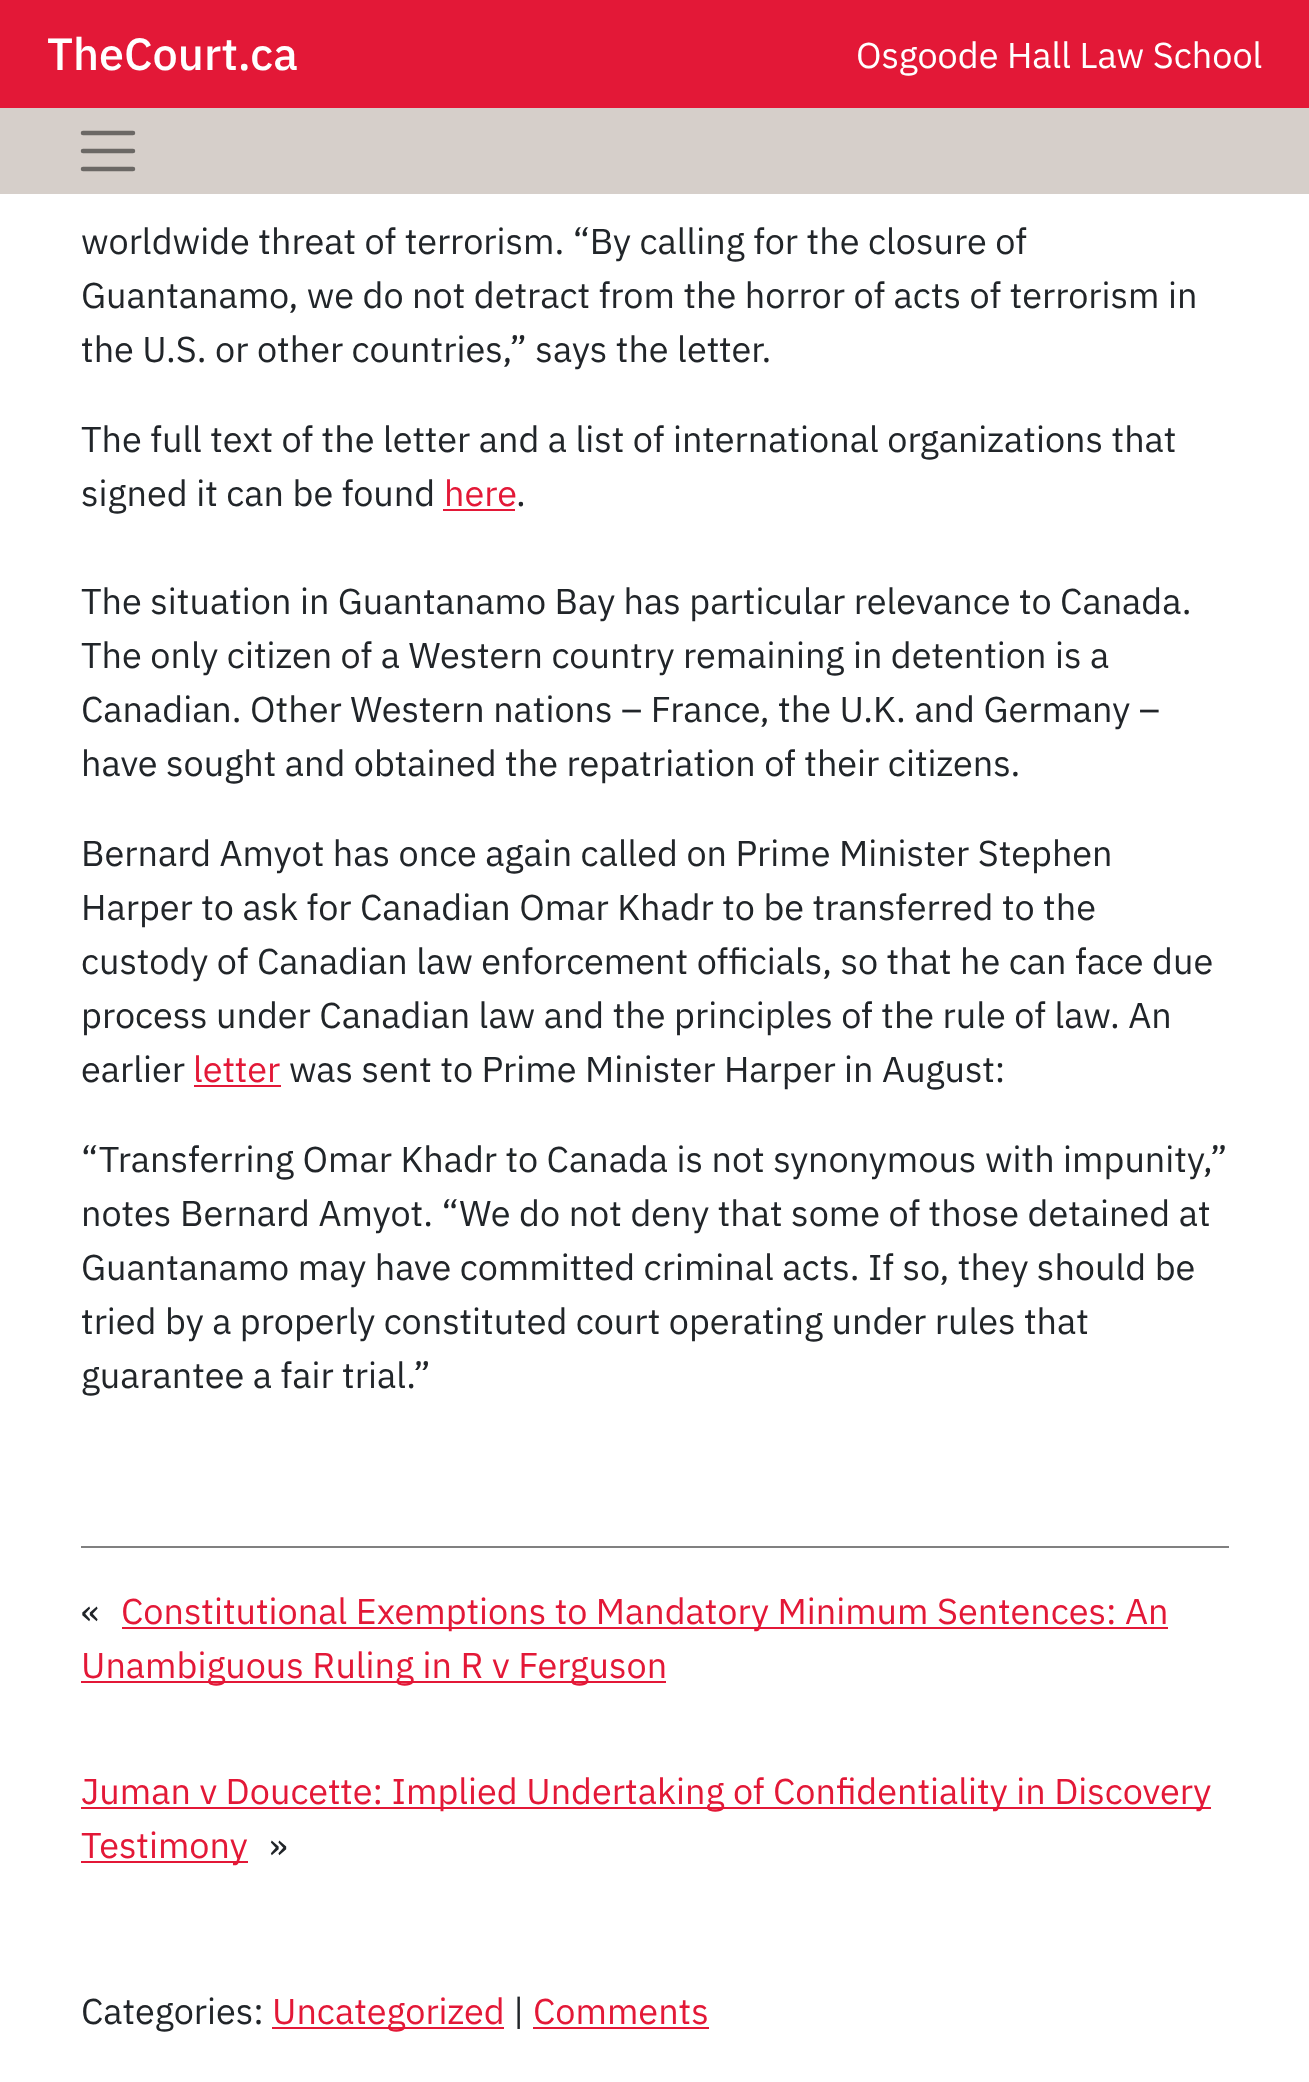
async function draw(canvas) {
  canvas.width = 1309
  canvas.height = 2082
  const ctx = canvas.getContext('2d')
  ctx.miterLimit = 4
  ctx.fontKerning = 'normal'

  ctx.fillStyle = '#fff'
  ctx.fillRect(0, 0, 1309, 2082)
  ctx.fillStyle = '#e31837'
  ctx.fillRect(0, 0, 1309, 108)
  ctx.font = '500 45px IBM Plex Sans'
  ctx.fillStyle = '#fff'
  ctx.fillText('TheCourt.ca', 47, 70)
  ctx.font = '36px IBM Plex Sans'
  ctx.fillText('Osgoode Hall Law School', 856, 68)
  ctx.fillStyle = '#d6cfca'
  ctx.fillRect(0, 108, 1309, 86)
  ctx.beginPath()
  ctx.moveTo(83, 133)
  ctx.lineTo(133, 133)
  ctx.moveTo(83, 151)
  ctx.lineTo(133, 151)
  ctx.moveTo(83, 169)
  ctx.lineTo(133, 169)
  ctx.strokeStyle = '#6b6865'
  ctx.lineWidth = 4.5
  ctx.lineCap = 'round'
  ctx.stroke()
  ctx.fillStyle = '#212529'
  ctx.fillText('worldwide threat of terrorism. “By calling for the closure of', 81, 254)
  ctx.fillText('Guantanamo, we do not detract from the horror of acts of terrorism in', 81, 308)
  ctx.fillText('the U.S. or other countries,” says the letter.', 81, 362)
  ctx.fillText('The full text of the letter and a list of international organizations that', 81, 452)
  ctx.fillText('signed it can be found', 81, 506)
  ctx.fillStyle = '#e31837'
  ctx.fillText('here', 444, 506)
  ctx.fillRect(443, 509, 72, 2)
  ctx.fillStyle = '#212529'
  ctx.fillText('.', 516, 506)
  ctx.fillText('The situation in Guantanamo Bay has particular relevance to Canada.', 81, 614)
  ctx.fillText('The only citizen of a Western country remaining in detention is a', 81, 668)
  ctx.fillText('Canadian. Other Western nations – France, the U.K. and Germany –', 81, 722)
  ctx.fillText('have sought and obtained the repatriation of their citizens.', 81, 776)
  ctx.fillText('Bernard Amyot has once again called on Prime Minister Stephen', 81, 866)
  ctx.fillText('Harper to ask for Canadian Omar Khadr to be transferred to the', 81, 920)
  ctx.fillText('custody of Canadian law enforcement officials, so that he can face due', 81, 974)
  ctx.fillText('process under Canadian law and the principles of the rule of law. An', 81, 1028)
  ctx.fillText('earlier', 81, 1082)
  ctx.fillStyle = '#e31837'
  ctx.fillText('letter', 193, 1082)
  ctx.fillRect(194, 1085, 87, 2)
  ctx.fillStyle = '#212529'
  ctx.fillText('was sent to Prime Minister Harper in August:', 289, 1082)
  ctx.fillText('“Transferring Omar Khadr to Canada is not synonymous with impunity,”', 81, 1172)
  ctx.fillText('notes Bernard Amyot. “We do not deny that some of those detained at', 81, 1226)
  ctx.fillText('Guantanamo may have committed criminal acts. If so, they should be', 81, 1280)
  ctx.fillText('tried by a properly constituted court operating under rules that', 81, 1334)
  ctx.fillText('guarantee a fair trial.”', 81, 1388)
  ctx.fillStyle = '#808080'
  ctx.fillRect(81, 1546, 1148, 2)
  ctx.fillStyle = '#212529'
  ctx.fillText('«', 81, 1624)
  ctx.fillStyle = '#e31837'
  ctx.fillRect(122, 1627, 1046, 2)
  ctx.fillText('Constitutional Exemptions to Mandatory Minimum Sentences: An', 121, 1624)
  ctx.fillRect(81, 1681, 585, 2)
  ctx.fillText('Unambiguous Ruling in R v Ferguson', 81, 1678)
  ctx.fillRect(81, 1807, 1130, 2)
  ctx.fillText('Juman v Doucette: Implied Undertaking of Confidentiality in Discovery', 81, 1804)
  ctx.fillRect(81, 1861, 167, 2)
  ctx.fillText('Testimony', 81, 1858)
  ctx.fillStyle = '#212529'
  ctx.fillText('»', 269, 1858)
  ctx.fillText('Categories:', 81, 2024)
  ctx.fillStyle = '#e31837'
  ctx.fillRect(272, 2027, 232, 2)
  ctx.fillText('Uncategorized', 272, 2024)
  ctx.fillStyle = '#212529'
  ctx.fillText('|', 513, 2024)
  ctx.fillStyle = '#e31837'
  ctx.fillText('Comments', 533, 2024)
  ctx.fillRect(533, 2027, 176, 2)
}

draw(document.querySelector('canvas'))
